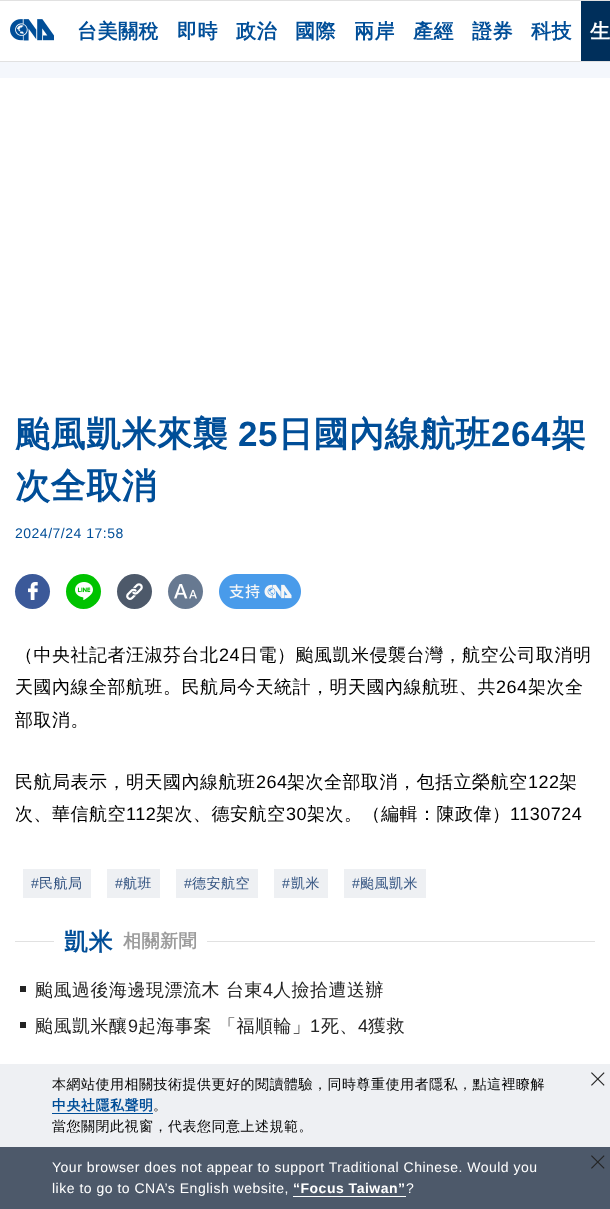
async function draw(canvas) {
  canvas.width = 610
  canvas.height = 1209
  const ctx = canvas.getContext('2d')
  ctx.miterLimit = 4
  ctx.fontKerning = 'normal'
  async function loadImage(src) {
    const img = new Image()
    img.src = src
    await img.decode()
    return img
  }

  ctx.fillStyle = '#fff'
  ctx.fillRect(0, 0, 610, 1209)
  ctx.fillStyle = '#e1e1e1'
  ctx.fillRect(0, 0, 610, 1)
  ctx.fillRect(0, 61, 610, 1)
  ctx.drawImage(await loadImage('image0.png'), 10, 19, 44, 22)
  ctx.letterSpacing = '0.5px'
  ctx.font = 'bold 20px WenQuanYi Zen Hei'
  ctx.fillStyle = '#004e98'
  ctx.fillText('台美關稅', 77, 38)
  ctx.fillText('即時', 177, 38)
  ctx.fillText('政治', 236, 38)
  ctx.fillText('國際', 295, 38)
  ctx.fillText('兩岸', 354, 38)
  ctx.fillText('產經', 413, 38)
  ctx.fillText('證券', 472, 38)
  ctx.fillText('科技', 531, 38)
  ctx.fillStyle = '#002f5b'
  ctx.fillRect(581, 1, 29, 60)
  ctx.fillStyle = '#fff'
  ctx.fillText('生', 590, 38)
  ctx.fillStyle = '#f4f7fc'
  ctx.fillRect(0, 62, 610, 16)
  ctx.font = 'bold 35px WenQuanYi Zen Hei'
  ctx.fillStyle = '#004e98'
  ctx.fillText('颱風凱米來襲', 15, 446)
  ctx.font = 'bold 35px Liberation Sans'
  ctx.fillText('25', 238, 446)
  ctx.font = 'bold 35px WenQuanYi Zen Hei'
  ctx.fillText('日國內線航班', 278, 446)
  ctx.font = 'bold 35px Liberation Sans'
  ctx.fillText('264', 491, 446)
  ctx.font = 'bold 35px WenQuanYi Zen Hei'
  ctx.fillText('架', 551, 446)
  ctx.fillText('次全取消', 15, 498)
  ctx.font = '14px Liberation Sans'
  ctx.fillText('2024/7/24 17:58', 15, 538)
  ctx.fillStyle = '#3b5999'
  ctx.beginPath()
  ctx.arc(32.5, 591.5, 17.5, 0, 2 * Math.PI)
  ctx.fill()
  ctx.drawImage(await loadImage('image1.png'), 28, 582, 10, 18)
  ctx.fillStyle = '#00c300'
  ctx.beginPath()
  ctx.arc(83.5, 591.5, 17.5, 0, 2 * Math.PI)
  ctx.fill()
  ctx.drawImage(await loadImage('image2.png'), 75, 582, 18, 18)
  ctx.fillStyle = '#4d596a'
  ctx.beginPath()
  ctx.arc(134.5, 591.5, 17.5, 0, 2 * Math.PI)
  ctx.fill()
  ctx.drawImage(await loadImage('image3.png'), 126, 583, 17, 17)
  ctx.fillStyle = '#677991'
  ctx.beginPath()
  ctx.arc(185.5, 591.5, 17.5, 0, 2 * Math.PI)
  ctx.fill()
  ctx.drawImage(await loadImage('image4.png'), 174, 584, 23, 15)
  ctx.drawImage(await loadImage('image5.png'), 219, 574, 82, 35)
  ctx.font = '500 18px WenQuanYi Zen Hei'
  ctx.fillStyle = '#000'
  ctx.fillText('（中央社記者汪淑芬台北', 15, 661)
  ctx.font = '18px Liberation Sans'
  ctx.fillText('24', 219, 661)
  ctx.font = '500 18px WenQuanYi Zen Hei'
  ctx.fillText('日電）颱風凱米侵襲台灣，航空公司取消明', 240, 661)
  ctx.fillText('天國內線全部航班。民航局今天統計，明天國內線航班、共', 15, 693)
  ctx.font = '18px Liberation Sans'
  ctx.fillText('264', 496, 693)
  ctx.font = '500 18px WenQuanYi Zen Hei'
  ctx.fillText('架次全', 528, 693)
  ctx.fillText('部取消。', 15, 726)
  ctx.fillText('民航局表示，明天國內線航班', 15, 788)
  ctx.font = '18px Liberation Sans'
  ctx.fillText('264', 256, 788)
  ctx.font = '500 18px WenQuanYi Zen Hei'
  ctx.fillText('架次全部取消，包括立榮航空', 287, 788)
  ctx.font = '18px Liberation Sans'
  ctx.fillText('122', 528, 788)
  ctx.font = '500 18px WenQuanYi Zen Hei'
  ctx.fillText('架', 559, 788)
  ctx.fillText('次、華信航空', 15, 820)
  ctx.font = '18px Liberation Sans'
  ctx.fillText('112', 126, 820)
  ctx.font = '500 18px WenQuanYi Zen Hei'
  ctx.fillText('架次、德安航空', 156, 820)
  ctx.font = '18px Liberation Sans'
  ctx.fillText('30', 286, 820)
  ctx.font = '500 18px WenQuanYi Zen Hei'
  ctx.fillText('架次。（編輯：陳政偉）', 307, 820)
  ctx.font = '18px Liberation Sans'
  ctx.fillText('1130724', 510, 820)
  ctx.fillStyle = '#eef0f3'
  ctx.fillRect(23, 869, 68, 29)
  ctx.font = '14px Liberation Sans'
  ctx.fillStyle = '#315280'
  ctx.fillText('#', 31, 888)
  ctx.font = '500 14px WenQuanYi Zen Hei'
  ctx.fillText('民航局', 39, 888)
  ctx.fillStyle = '#eef0f3'
  ctx.fillRect(107, 869, 53, 29)
  ctx.font = '14px Liberation Sans'
  ctx.fillStyle = '#315280'
  ctx.fillText('#', 115, 888)
  ctx.font = '500 14px WenQuanYi Zen Hei'
  ctx.fillText('航班', 123, 888)
  ctx.fillStyle = '#eef0f3'
  ctx.fillRect(176, 869, 82, 29)
  ctx.font = '14px Liberation Sans'
  ctx.fillStyle = '#315280'
  ctx.fillText('#', 184, 888)
  ctx.font = '500 14px WenQuanYi Zen Hei'
  ctx.fillText('德安航空', 192, 888)
  ctx.fillStyle = '#eef0f3'
  ctx.fillRect(274, 869, 54, 29)
  ctx.font = '14px Liberation Sans'
  ctx.fillStyle = '#315280'
  ctx.fillText('#', 282, 888)
  ctx.font = '500 14px WenQuanYi Zen Hei'
  ctx.fillText('凱米', 291, 888)
  ctx.fillStyle = '#eef0f3'
  ctx.fillRect(344, 869, 82, 29)
  ctx.font = '14px Liberation Sans'
  ctx.fillStyle = '#315280'
  ctx.fillText('#', 352, 888)
  ctx.font = '500 14px WenQuanYi Zen Hei'
  ctx.fillText('颱風凱米', 360, 888)
  ctx.fillStyle = '#e1e1e1'
  ctx.fillRect(15, 941, 580, 1)
  ctx.fillStyle = '#fff'
  ctx.fillRect(54, 941, 153, 1)
  ctx.font = 'bold 24px WenQuanYi Zen Hei'
  ctx.fillStyle = '#004e98'
  ctx.fillText('凱米', 64, 950)
  ctx.font = 'bold 18px WenQuanYi Zen Hei'
  ctx.fillStyle = '#9c9c9c'
  ctx.fillText('相關新聞', 123, 947)
  ctx.fillStyle = '#232323'
  ctx.fillRect(20, 986, 6, 6)
  ctx.font = '500 18px WenQuanYi Zen Hei'
  ctx.fillText('颱風過後海邊現漂流木 台東', 35, 996)
  ctx.font = '18px Liberation Sans'
  ctx.fillText('4', 263, 996)
  ctx.font = '500 18px WenQuanYi Zen Hei'
  ctx.fillText('人撿拾遭送辦', 273, 996)
  ctx.fillRect(20, 1022, 6, 6)
  ctx.fillText('颱風凱米釀', 35, 1032)
  ctx.font = '18px Liberation Sans'
  ctx.fillText('9', 128, 1032)
  ctx.font = '500 18px WenQuanYi Zen Hei'
  ctx.fillText('起海事案 「福順輪」', 138, 1032)
  ctx.font = '18px Liberation Sans'
  ctx.fillText('1', 310, 1032)
  ctx.font = '500 18px WenQuanYi Zen Hei'
  ctx.fillText('死、', 321, 1032)
  ctx.font = '18px Liberation Sans'
  ctx.fillText('4', 358, 1032)
  ctx.font = '500 18px WenQuanYi Zen Hei'
  ctx.fillText('獲救', 368, 1032)
  ctx.fillStyle = '#eef0f3'
  ctx.fillRect(0, 1064, 610, 83)
  ctx.font = '500 14px WenQuanYi Zen Hei'
  ctx.fillStyle = '#000'
  ctx.fillText('本網站使用相關技術提供更好的閱讀體驗，同時尊重使用者隱私，點這裡瞭解', 52, 1089)
  ctx.font = 'bold 14px WenQuanYi Zen Hei'
  ctx.fillStyle = '#004e98'
  ctx.fillText('中央社隱私聲明', 52, 1110)
  ctx.fillRect(52, 1113, 101, 1)
  ctx.font = '500 14px WenQuanYi Zen Hei'
  ctx.fillStyle = '#000'
  ctx.fillText('。', 153, 1110)
  ctx.fillText('當您關閉此視窗，代表您同意上述規範。', 52, 1131)
  ctx.drawImage(await loadImage('image6.png'), 591, 1072, 14, 14)
  ctx.fillStyle = '#4d596a'
  ctx.fillRect(0, 1147, 610, 62)
  ctx.font = '14px Liberation Sans'
  ctx.fillStyle = '#fff'
  ctx.fillText('Your browser does not appear to support Traditional Chinese. Would you', 52, 1172)
  ctx.fillText('like to go to CNA’s English website,', 52, 1193)
  ctx.font = 'bold 14px Liberation Sans'
  ctx.fillText('“Focus Taiwan”', 293, 1193)
  ctx.fillRect(293, 1196, 113, 1)
  ctx.font = '14px Liberation Sans'
  ctx.fillText('?', 406, 1193)
  ctx.drawImage(await loadImage('image7.png'), 591, 1155, 14, 14)
}

draw(document.querySelector('canvas'))
